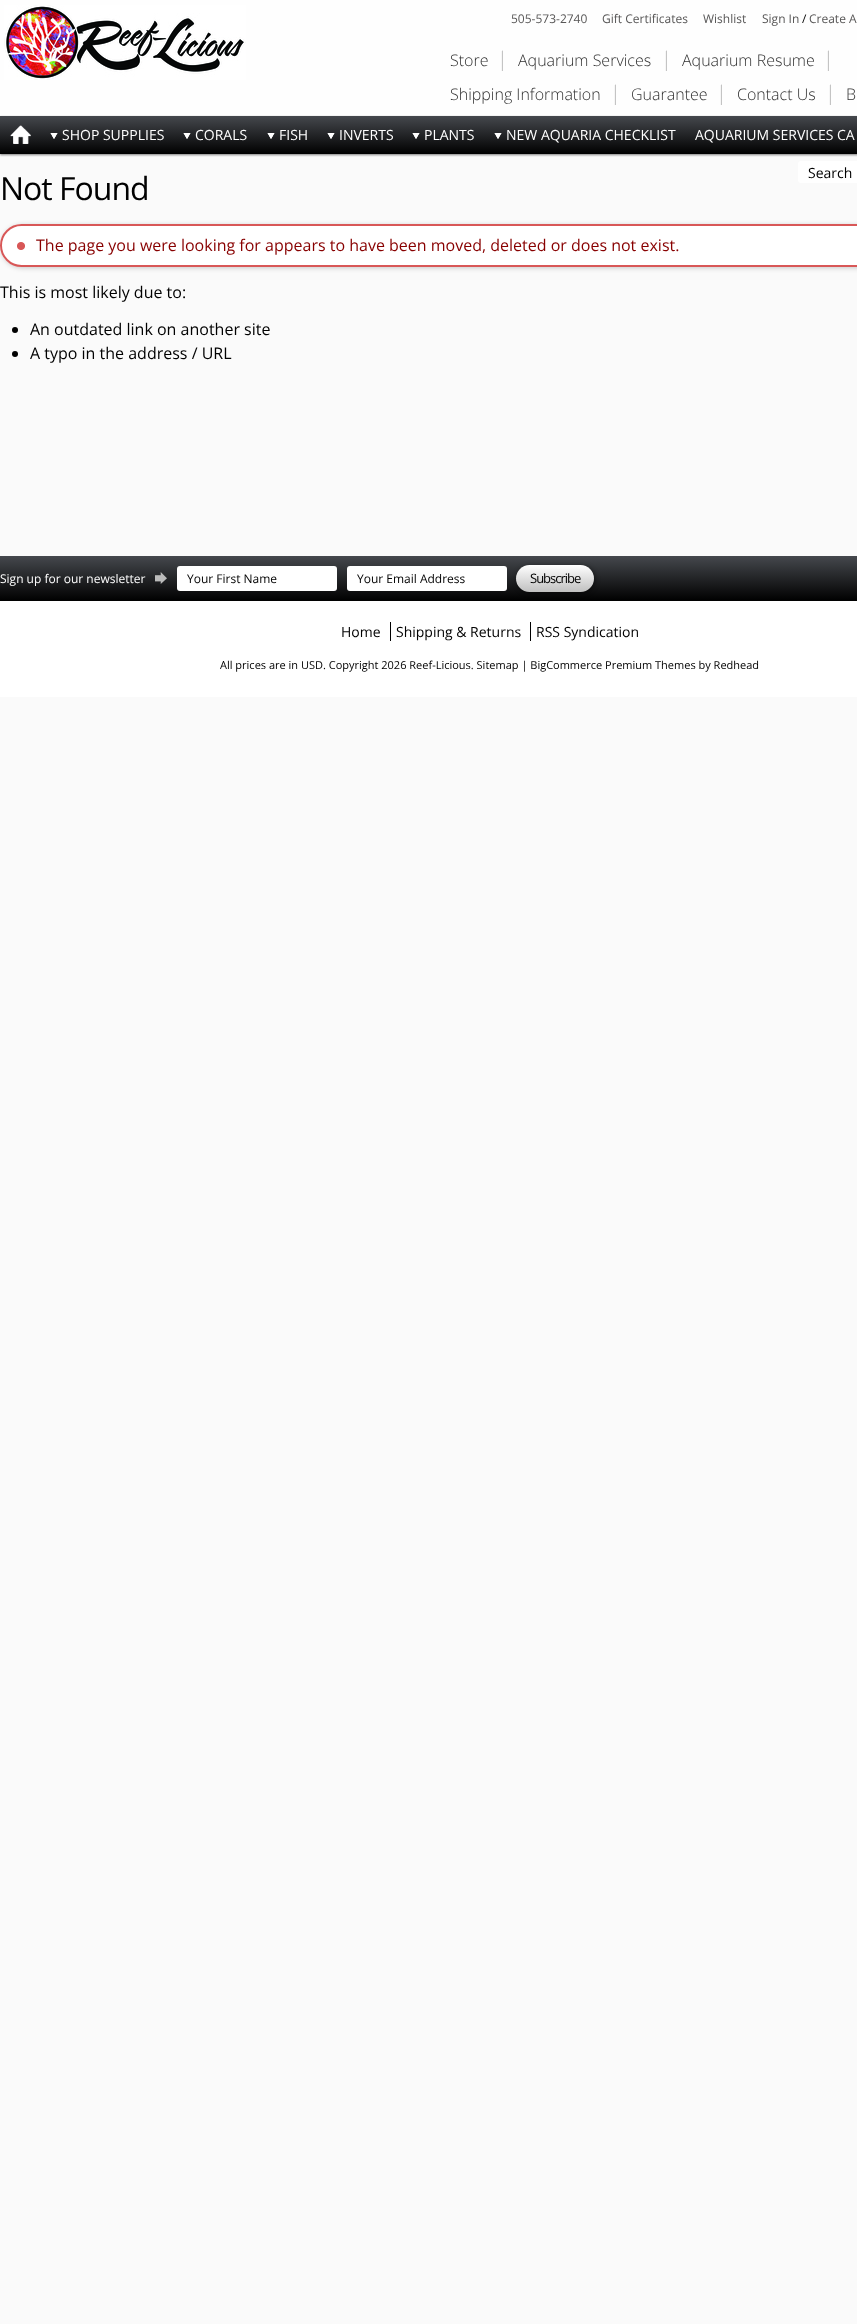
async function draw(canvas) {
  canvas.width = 857
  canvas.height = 2324
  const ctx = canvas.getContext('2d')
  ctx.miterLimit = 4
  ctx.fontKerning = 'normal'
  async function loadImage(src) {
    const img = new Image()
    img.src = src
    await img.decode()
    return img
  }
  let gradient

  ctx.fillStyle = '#fafafa'
  ctx.fillRect(0, 0, 857, 2324)
  ctx.fillStyle = '#fefefe'
  ctx.fillRect(0, 0, 857, 116)
  ctx.drawImage(await loadImage('image0.png'), 4, 5, 242, 75)
  ctx.font = '12px Open Sans'
  ctx.fillStyle = '#575656'
  ctx.fillText('505-573-2740', 511, 23)
  ctx.fillText('Gift Certificates', 602, 23)
  ctx.fillText('Wishlist', 703, 23)
  ctx.fillText('Sign In', 762, 23)
  ctx.fillStyle = '#010101'
  ctx.fillText('/', 802, 23)
  ctx.fillStyle = '#575656'
  ctx.fillText('Create A', 809, 23)
  ctx.drawImage(await loadImage('image1.png'), 501, 50, 2, 21)
  ctx.font = '300 16px Open Sans'
  ctx.fillStyle = '#313131'
  ctx.fillText('Store', 450, 66)
  ctx.drawImage(await loadImage('image1.png'), 665, 50, 2, 21)
  ctx.fillText('Aquarium Services', 518, 66)
  ctx.drawImage(await loadImage('image1.png'), 827, 50, 2, 21)
  ctx.fillText('Aquarium Resume', 682, 66)
  ctx.drawImage(await loadImage('image1.png'), 614, 84, 2, 21)
  ctx.fillText('Shipping Information', 450, 100)
  ctx.drawImage(await loadImage('image1.png'), 720, 84, 2, 21)
  ctx.fillText('Guarantee', 631, 100)
  ctx.drawImage(await loadImage('image1.png'), 829, 84, 2, 21)
  ctx.fillText('Contact Us', 737, 100)
  ctx.fillText('B', 846, 100)
  ctx.fillStyle = '#00000080'
  ctx.filter = 'blur(1px)'
  ctx.beginPath()
  ctx.rect(0, 117, 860, 38)
  ctx.fill()
  ctx.filter = 'none'
  gradient = ctx.createLinearGradient(490, 116, 490, 154)
  gradient.addColorStop(0, '#45484d')
  gradient.addColorStop(1, '#000')
  ctx.fillStyle = gradient
  ctx.fillRect(0, 116, 857, 38)
  ctx.drawImage(await loadImage('image2.png'), 10, 125, 21, 19)
  ctx.drawImage(await loadImage('image3.png'), 50, 133, 8, 6)
  ctx.font = '14px Open Sans'
  ctx.fillStyle = '#fff'
  ctx.fillText('SHOP SUPPLIES', 62, 140)
  ctx.drawImage(await loadImage('image4.png'), 50, 133, 8, 6)
  ctx.drawImage(await loadImage('image3.png'), 183, 133, 8, 6)
  ctx.fillText('CORALS', 195, 140)
  ctx.drawImage(await loadImage('image4.png'), 183, 133, 8, 6)
  ctx.drawImage(await loadImage('image3.png'), 267, 133, 8, 6)
  ctx.fillText('FISH', 279, 140)
  ctx.drawImage(await loadImage('image4.png'), 267, 133, 8, 6)
  ctx.drawImage(await loadImage('image3.png'), 327, 133, 8, 6)
  ctx.fillText('INVERTS', 339, 140)
  ctx.drawImage(await loadImage('image4.png'), 327, 133, 8, 6)
  ctx.drawImage(await loadImage('image3.png'), 412, 133, 8, 6)
  ctx.fillText('PLANTS', 424, 140)
  ctx.drawImage(await loadImage('image4.png'), 412, 133, 8, 6)
  ctx.drawImage(await loadImage('image3.png'), 494, 133, 8, 6)
  ctx.fillText('NEW AQUARIA CHECKLIST', 506, 140)
  ctx.drawImage(await loadImage('image4.png'), 494, 133, 8, 6)
  ctx.fillText('AQUARIUM SERVICES CA', 695, 140)
  ctx.beginPath()
  ctx.roundRect(798, 161, 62, 22, 3)
  ctx.fill()
  ctx.fillStyle = '#010101'
  ctx.fillText('Search', 808, 178)
  ctx.letterSpacing = '-1px'
  ctx.font = '32px Open Sans'
  ctx.fillText('Not Found', 0, 200)
  ctx.fillStyle = '#00000033'
  ctx.filter = 'blur(2.5px)'
  ctx.beginPath()
  ctx.roundRect(1, 225, 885, 43, 21.5)
  ctx.fill()
  ctx.filter = 'none'
  ctx.fillStyle = '#fff'
  ctx.beginPath()
  ctx.roundRect(0, 224, 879, 43, 21.5)
  ctx.fill()
  ctx.drawImage(await loadImage('image5.png'), 17, 242, 8, 8)
  ctx.beginPath()
  ctx.roundRect(1, 225, 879, 41, 20.5)
  ctx.strokeStyle = '#d85757'
  ctx.lineWidth = 2
  ctx.stroke()
  ctx.letterSpacing = '0px'
  ctx.font = '16px Open Sans'
  ctx.fillStyle = '#800'
  ctx.fillText('The page you were looking for appears to have been moved, deleted or does not exist.', 36, 251)
  ctx.fillStyle = '#010101'
  ctx.fillText('This is most likely due to:', 0, 298)
  ctx.beginPath()
  ctx.arc(15, 330, 3, 0, 2 * Math.PI)
  ctx.fill()
  ctx.fillText('An outdated link on another site', 30, 335)
  ctx.beginPath()
  ctx.arc(15, 354, 3, 0, 2 * Math.PI)
  ctx.fill()
  ctx.fillText('A typo in the address / URL', 30, 359)
  ctx.fillStyle = '#fff'
  ctx.fillRect(0, 601, 857, 96)
  gradient = ctx.createLinearGradient(490, 556, 490, 601)
  gradient.addColorStop(0, '#45484d')
  gradient.addColorStop(1, '#000')
  ctx.fillStyle = gradient
  ctx.fillRect(0, 556, 857, 45)
  ctx.font = '12px Open Sans'
  ctx.fillStyle = '#fff'
  ctx.fillText('Sign up for our newsletter', 0, 583)
  ctx.drawImage(await loadImage('image6.png'), 155, 572, 12, 12)
  ctx.beginPath()
  ctx.roundRect(177, 566, 160, 25, 3)
  ctx.fill()
  ctx.fillStyle = '#010101'
  ctx.fillText('Your First Name', 187, 583)
  ctx.fillStyle = '#fff'
  ctx.beginPath()
  ctx.roundRect(347, 566, 160, 25, 3)
  ctx.fill()
  ctx.fillStyle = '#010101'
  ctx.fillText('Your Email Address', 357, 583)
  ctx.fillStyle = '#00000080'
  ctx.filter = 'blur(2.5px)'
  ctx.beginPath()
  ctx.roundRect(517, 566, 78, 27, 13.5)
  ctx.fill()
  ctx.filter = 'none'
  gradient = ctx.createLinearGradient(555, 565, 555, 592)
  gradient.addColorStop(0, '#fff')
  gradient.addColorStop(1, '#c0c0c0')
  ctx.fillStyle = gradient
  ctx.beginPath()
  ctx.roundRect(516, 565, 78, 27, 13.5)
  ctx.fill()
  ctx.letterSpacing = '-1px'
  ctx.font = '13px Open Sans'
  ctx.fillStyle = '#010101'
  ctx.fillText('Subscribe', 530, 583)
  ctx.letterSpacing = '0px'
  ctx.font = '14px Open Sans'
  ctx.fillText('Home', 341, 637)
  ctx.fillStyle = '#000'
  ctx.fillRect(390, 622, 1, 19)
  ctx.fillStyle = '#010101'
  ctx.fillText('Shipping & Returns', 396, 637)
  ctx.fillStyle = '#000'
  ctx.fillRect(530, 622, 1, 19)
  ctx.fillStyle = '#010101'
  ctx.fillText('RSS Syndication', 536, 637)
  ctx.font = '11px Open Sans'
  ctx.fillText('All prices are in USD. Copyright 2026 Reef-Licious. Sitemap | BigCommerce Premium Themes by Redhead', 220, 669)
}

draw(document.querySelector('canvas'))
